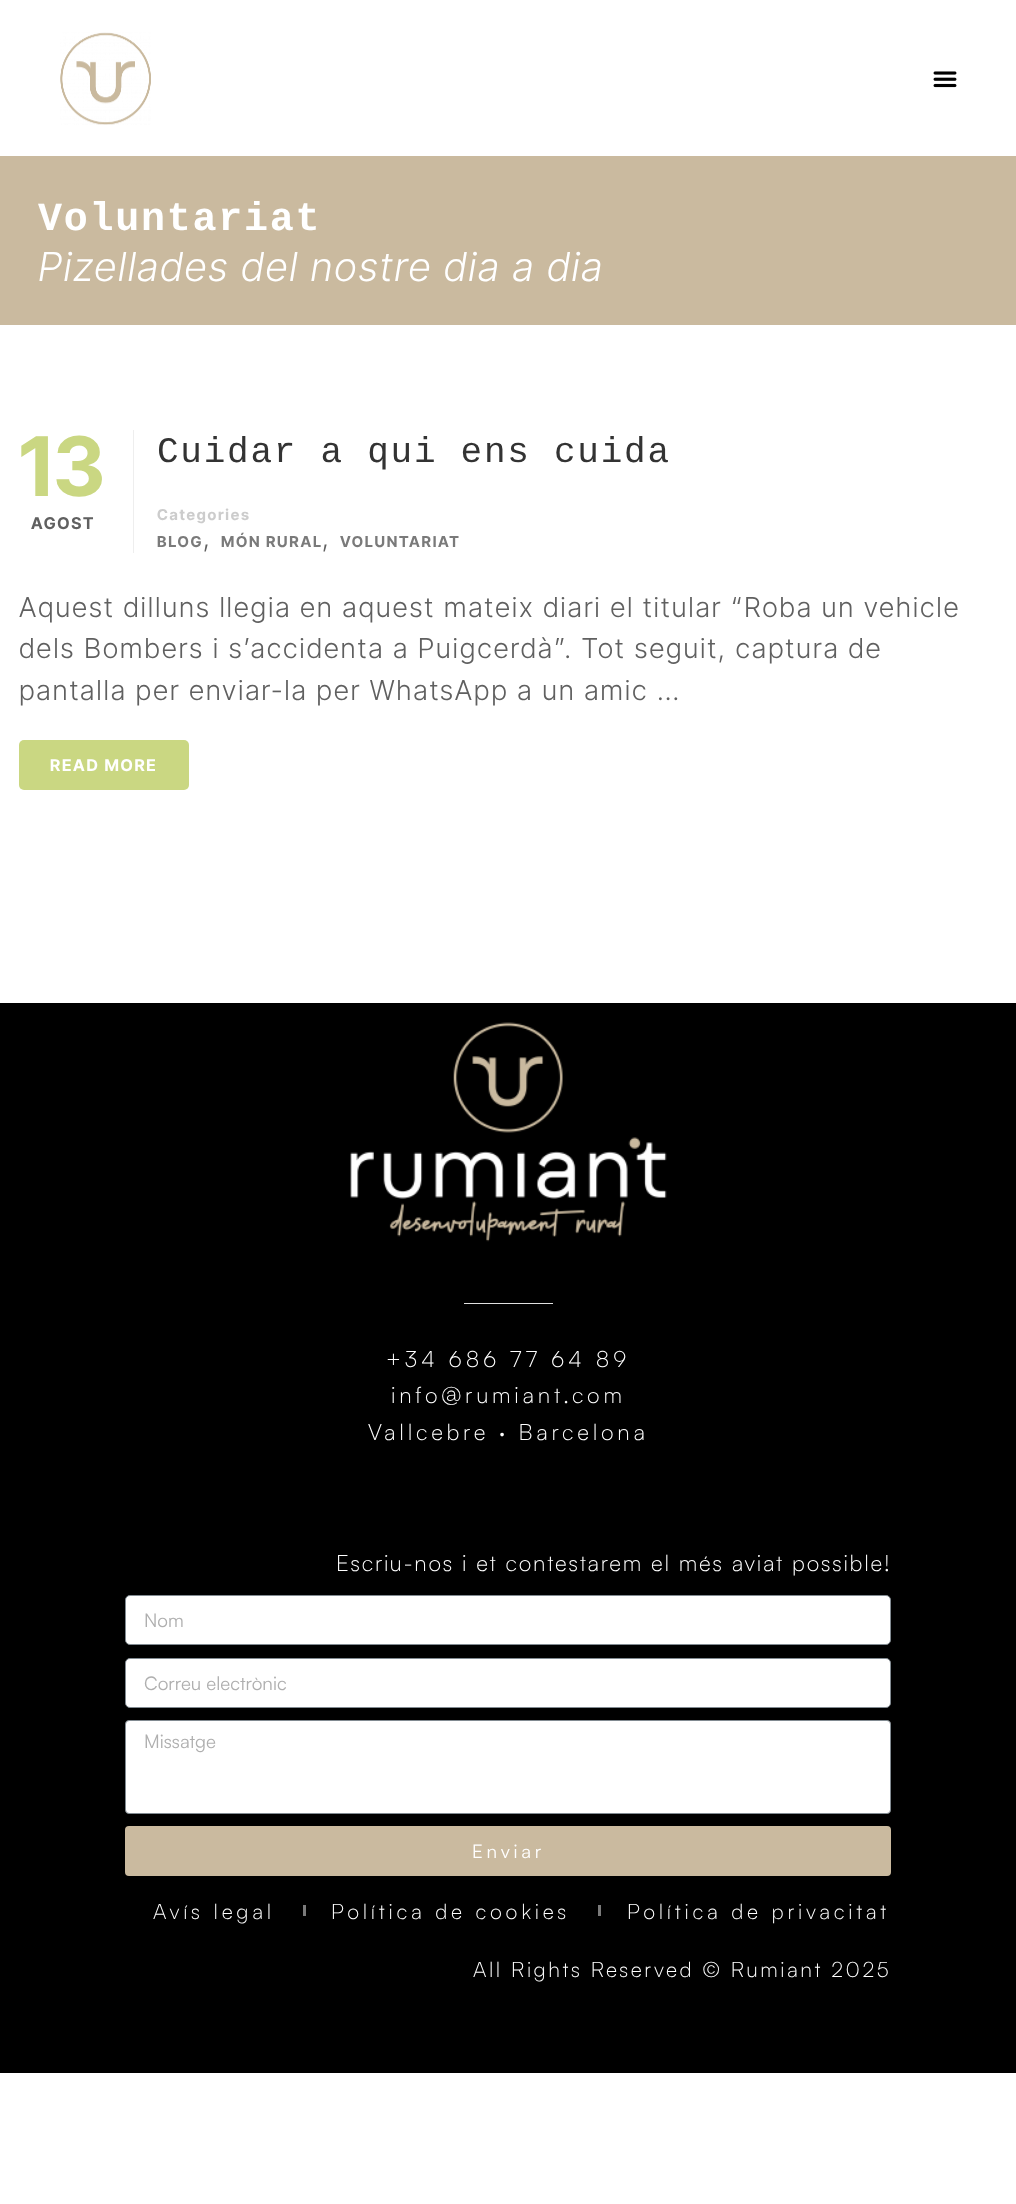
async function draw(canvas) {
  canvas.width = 1016
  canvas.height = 2204
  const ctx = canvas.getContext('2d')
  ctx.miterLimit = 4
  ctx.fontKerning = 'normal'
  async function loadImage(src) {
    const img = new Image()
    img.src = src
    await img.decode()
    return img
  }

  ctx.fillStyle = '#fff'
  ctx.fillRect(0, 0, 1016, 2204)
  ctx.drawImage(await loadImage('image0.png'), 60, 32, 91, 93)
  ctx.drawImage(await loadImage('image1.png'), 933, 71, 24, 17)
  ctx.fillStyle = '#caba9f'
  ctx.fillRect(0, 156, 1016, 169)
  ctx.letterSpacing = '1.75px'
  ctx.font = 'bold 40px Liberation Mono'
  ctx.fillStyle = '#fff'
  ctx.fillText('Voluntariat', 38, 230)
  ctx.font = 'italic 300 40px Inter Tight'
  ctx.fillText('Pizellades del nostre dia a dia', 38, 281)
  ctx.font = 'bold 82px Inter Tight'
  ctx.fillStyle = '#cad782'
  ctx.fillText('13', 19, 496)
  ctx.font = 'bold 16.25px Inter Tight'
  ctx.fillStyle = '#606060'
  ctx.fillText('AGOST', 31, 529)
  ctx.fillStyle = '#eee'
  ctx.fillRect(133, 430, 1, 123)
  ctx.font = '36px Liberation Mono'
  ctx.fillStyle = '#333'
  ctx.fillText('Cuidar a qui ens cuida', 157, 462)
  ctx.font = 'bold 15px Inter Tight'
  ctx.fillStyle = '#ccc'
  ctx.fillText('Categories', 157, 520)
  ctx.fillStyle = '#7a7a7a'
  ctx.fillText('BLOG', 157, 547)
  ctx.font = '300 27.5px Inter Tight'
  ctx.fillStyle = '#606060'
  ctx.fillText(',', 203, 547)
  ctx.font = 'bold 15px Inter Tight'
  ctx.fillStyle = '#7a7a7a'
  ctx.fillText('MÓN RURAL', 221, 547)
  ctx.font = '300 27.5px Inter Tight'
  ctx.fillStyle = '#606060'
  ctx.fillText(',', 322, 547)
  ctx.font = 'bold 15px Inter Tight'
  ctx.fillStyle = '#7a7a7a'
  ctx.fillText('VOLUNTARIAT', 340, 547)
  ctx.font = '300 27.5px Inter Tight'
  ctx.fillStyle = '#606060'
  ctx.fillText('Aquest dilluns llegia en aquest mateix diari el titular “Roba un vehicle', 19, 617)
  ctx.fillText('dels Bombers i s’accidenta a Puigcerdà”. Tot seguit, captura de', 19, 658)
  ctx.fillText('pantalla per enviar-la per WhatsApp a un amic …', 19, 700)
  ctx.fillStyle = '#cad782'
  ctx.beginPath()
  ctx.roundRect(19, 740, 170, 50, 5)
  ctx.fill()
  ctx.font = 'bold 16.25px Inter Tight'
  ctx.fillStyle = '#fff'
  ctx.fillText('READ MORE', 50, 771)
  ctx.fillStyle = '#000'
  ctx.fillRect(0, 1003, 1016, 1070)
  ctx.drawImage(await loadImage('image2.png'), 350, 1022, 317, 220)
  ctx.fillStyle = '#e0e0e0'
  ctx.fillRect(464, 1303, 89, 1)
  ctx.letterSpacing = '3.75px'
  ctx.font = '300 22.5px Satoshi'
  ctx.fillStyle = '#fff'
  ctx.fillText('+34 686 77 64 89', 386, 1367)
  ctx.fillText('info@rumiant.com', 391, 1403)
  ctx.fillText('Vallcebre · Barcelona', 368, 1440)
  ctx.letterSpacing = '1.75px'
  ctx.fillText('Escriu-nos i et contestarem el més aviat possible!', 336, 1571)
  ctx.beginPath()
  ctx.roundRect(125.5, 1595.5, 765, 49, 4.5)
  ctx.fill()
  ctx.strokeStyle = '#818a91'
  ctx.stroke()
  ctx.letterSpacing = '0px'
  ctx.font = '18.75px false'
  ctx.fillStyle = '#afafaf'
  ctx.fillText('Nom', 144, 1627)
  ctx.fillStyle = '#fff'
  ctx.beginPath()
  ctx.roundRect(125.5, 1658.5, 765, 49, 4.5)
  ctx.fill()
  ctx.stroke()
  ctx.fillStyle = '#afafaf'
  ctx.fillText('Correu electrònic', 144, 1690)
  ctx.fillStyle = '#fff'
  ctx.beginPath()
  ctx.roundRect(125.5, 1720.5, 765, 93, 3.5)
  ctx.fill()
  ctx.stroke()
  ctx.fillStyle = '#afafaf'
  ctx.fillText('Missatge', 144, 1748)
  ctx.fillStyle = '#caba9f'
  ctx.beginPath()
  ctx.roundRect(125, 1826, 766, 50, 4)
  ctx.fill()
  ctx.letterSpacing = '3.75px'
  ctx.fillStyle = '#fff'
  ctx.fillText('Enviar', 472, 1858)
  ctx.font = '300 21.25px Satoshi'
  ctx.fillText('Avís legal', 153, 1919)
  ctx.fillStyle = '#7a7a7a'
  ctx.fillRect(303, 1905, 3, 11)
  ctx.fillStyle = '#fff'
  ctx.fillText('Política de cookies', 331, 1919)
  ctx.fillStyle = '#7a7a7a'
  ctx.fillRect(598, 1905, 3, 11)
  ctx.fillStyle = '#fff'
  ctx.fillText('Política de privacitat', 627, 1919)
  ctx.letterSpacing = '2.5px'
  ctx.fillText('All Rights Reserved © Rumiant 2025', 473, 1977)
}

draw(document.querySelector('canvas'))
